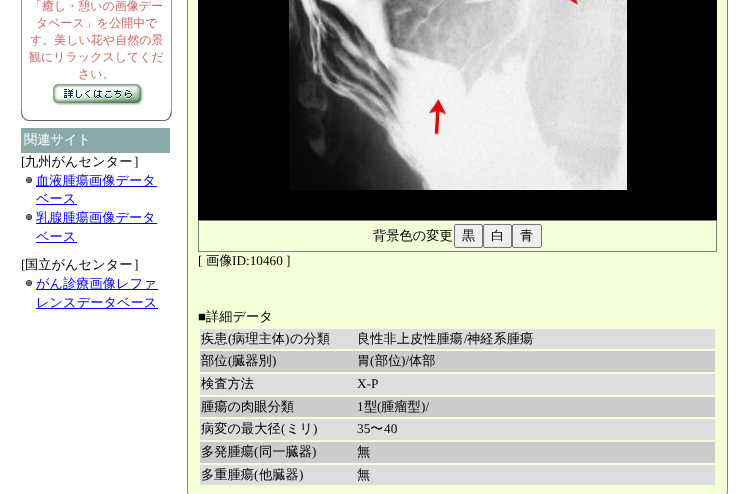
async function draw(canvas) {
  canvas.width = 749
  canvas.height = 494
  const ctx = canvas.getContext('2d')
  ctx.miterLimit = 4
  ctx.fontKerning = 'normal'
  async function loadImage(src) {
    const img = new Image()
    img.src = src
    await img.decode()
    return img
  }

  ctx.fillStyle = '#fff'
  ctx.fillRect(0, 0, 749, 494)
  ctx.fillStyle = '#889696'
  ctx.fillRect(171, 0, 1, 111)
  ctx.fillRect(21, 0, 1, 111)
  ctx.font = '500 12px WenQuanYi Zen Hei'
  ctx.fillStyle = '#c66'
  ctx.fillText('「癒し・憩いの画像デー', 30, 10)
  ctx.fillText('タベース」を公開中で', 36, 27)
  ctx.fillText('す。美しい花や自然の景', 30, 44)
  ctx.fillText('観にリラックスしてくだ', 29, 61)
  ctx.fillText('さい。', 78, 78)
  ctx.drawImage(await loadImage('image0.png'), 52, 83, 92, 23)
  ctx.drawImage(await loadImage('image1.png'), 21, 111, 151, 10)
  ctx.fillStyle = '#8aa9a9'
  ctx.fillRect(21, 128, 149, 25)
  ctx.font = '500 13.25px WenQuanYi Zen Hei'
  ctx.fillStyle = '#fff'
  ctx.fillText('関連サイト', 24, 144)
  ctx.font = '13.25px Liberation Serif'
  ctx.fillStyle = '#000'
  ctx.fillText('[', 21, 166)
  ctx.font = '500 13.25px WenQuanYi Zen Hei'
  ctx.fillText('九州がんセンター', 25, 166)
  ctx.font = '13.25px Liberation Serif'
  ctx.fillText(']', 134, 166)
  ctx.drawImage(await loadImage('image2.png'), 26, 177, 6, 6)
  ctx.fillStyle = '#00e'
  ctx.fillRect(36, 186, 121, 1)
  ctx.font = '500 13.25px WenQuanYi Zen Hei'
  ctx.fillText('血液腫瘍画像データ', 36, 185)
  ctx.fillText('ベース', 36, 203)
  ctx.fillRect(36, 204, 41, 1)
  ctx.drawImage(await loadImage('image2.png'), 26, 214, 6, 6)
  ctx.fillRect(36, 223, 121, 1)
  ctx.fillText('乳腺腫瘍画像データ', 36, 222)
  ctx.fillText('ベース', 36, 241)
  ctx.fillRect(36, 242, 41, 1)
  ctx.font = '13.25px Liberation Serif'
  ctx.fillStyle = '#000'
  ctx.fillText('[', 21, 269)
  ctx.font = '500 13.25px WenQuanYi Zen Hei'
  ctx.fillText('国立がんセンター', 25, 269)
  ctx.font = '13.25px Liberation Serif'
  ctx.fillText(']', 134, 269)
  ctx.drawImage(await loadImage('image2.png'), 26, 280, 6, 6)
  ctx.fillStyle = '#00e'
  ctx.fillRect(36, 289, 122, 1)
  ctx.font = '500 13.25px WenQuanYi Zen Hei'
  ctx.fillText('がん診療画像レファ', 36, 288)
  ctx.fillRect(36, 308, 122, 1)
  ctx.fillText('レンスデータベース', 36, 307)
  ctx.fillStyle = '#f5ffd7'
  ctx.fillRect(188, 0, 539, 487)
  ctx.fillStyle = '#808080'
  ctx.fillRect(727, 0, 1, 487)
  ctx.fillRect(187, 0, 1, 487)
  ctx.fillStyle = '#000'
  ctx.fillRect(198, 0, 519, 220)
  ctx.drawImage(await loadImage('image3.png'), 289, 0, 338, 190)
  ctx.strokeStyle = '#808080'
  ctx.strokeRect(198.5, 220.5, 518, 31)
  ctx.fillText('背景色の変更', 373, 240)
  ctx.fillStyle = '#efefef'
  ctx.beginPath()
  ctx.roundRect(454.5, 224.5, 28, 23, 1.5)
  ctx.fill()
  ctx.strokeStyle = '#767676'
  ctx.stroke()
  ctx.fillStyle = '#000'
  ctx.fillText('黒', 462, 240)
  ctx.fillStyle = '#efefef'
  ctx.beginPath()
  ctx.roundRect(483.5, 224.5, 28, 23, 1.5)
  ctx.fill()
  ctx.stroke()
  ctx.fillStyle = '#000'
  ctx.fillText('白', 491, 240)
  ctx.fillStyle = '#efefef'
  ctx.beginPath()
  ctx.roundRect(512.5, 224.5, 29, 23, 1.5)
  ctx.fill()
  ctx.stroke()
  ctx.fillStyle = '#000'
  ctx.fillText('青', 520, 240)
  ctx.font = '13.25px Liberation Serif'
  ctx.fillText('[', 198, 265)
  ctx.font = '500 13.25px WenQuanYi Zen Hei'
  ctx.fillText('画像', 206, 265)
  ctx.font = '13.25px Liberation Serif'
  ctx.fillText('ID:10460 ]', 232, 265)
  ctx.fillText('■', 198, 321)
  ctx.font = '500 13.25px WenQuanYi Zen Hei'
  ctx.fillText('詳細データ', 206, 321)
  ctx.fillStyle = '#ddd'
  ctx.fillRect(200, 329, 515, 20)
  ctx.fillStyle = '#000'
  ctx.fillText('疾患', 201, 343)
  ctx.font = '13.25px Liberation Serif'
  ctx.fillText('(', 228, 343)
  ctx.font = '500 13.25px WenQuanYi Zen Hei'
  ctx.fillText('病理主体', 232, 343)
  ctx.font = '13.25px Liberation Serif'
  ctx.fillText(')', 285, 343)
  ctx.font = '500 13.25px WenQuanYi Zen Hei'
  ctx.fillText('の分類', 290, 343)
  ctx.fillText('良性非上皮性腫瘍', 357, 343)
  ctx.font = '13.25px Liberation Serif'
  ctx.fillText('/', 464, 343)
  ctx.font = '500 13.25px WenQuanYi Zen Hei'
  ctx.fillText('神経系腫瘍', 467, 343)
  ctx.fillStyle = '#ccc'
  ctx.fillRect(200, 351, 515, 21)
  ctx.fillStyle = '#000'
  ctx.fillText('部位', 201, 365)
  ctx.font = '13.25px Liberation Serif'
  ctx.fillText('(', 228, 365)
  ctx.font = '500 13.25px WenQuanYi Zen Hei'
  ctx.fillText('臓器別', 232, 365)
  ctx.font = '13.25px Liberation Serif'
  ctx.fillText(')', 272, 365)
  ctx.font = '500 13.25px WenQuanYi Zen Hei'
  ctx.fillText('胃', 357, 365)
  ctx.font = '13.25px Liberation Serif'
  ctx.fillText('(', 370, 365)
  ctx.font = '500 13.25px WenQuanYi Zen Hei'
  ctx.fillText('部位', 375, 365)
  ctx.font = '13.25px Liberation Serif'
  ctx.fillText(')/', 401, 365)
  ctx.font = '500 13.25px WenQuanYi Zen Hei'
  ctx.fillText('体部', 409, 365)
  ctx.fillStyle = '#ddd'
  ctx.fillRect(200, 374, 515, 21)
  ctx.fillStyle = '#000'
  ctx.fillText('検査方法', 201, 388)
  ctx.font = '13.25px Liberation Serif'
  ctx.fillText('X-P', 357, 388)
  ctx.fillStyle = '#ccc'
  ctx.fillRect(200, 397, 515, 20)
  ctx.font = '500 13.25px WenQuanYi Zen Hei'
  ctx.fillStyle = '#000'
  ctx.fillText('腫瘍の肉眼分類', 201, 411)
  ctx.font = '13.25px Liberation Serif'
  ctx.fillText('1', 357, 411)
  ctx.font = '500 13.25px WenQuanYi Zen Hei'
  ctx.fillText('型', 364, 411)
  ctx.font = '13.25px Liberation Serif'
  ctx.fillText('(', 377, 411)
  ctx.font = '500 13.25px WenQuanYi Zen Hei'
  ctx.fillText('腫瘤型', 381, 411)
  ctx.font = '13.25px Liberation Serif'
  ctx.fillText(')/', 421, 411)
  ctx.fillStyle = '#ddd'
  ctx.fillRect(200, 419, 515, 21)
  ctx.font = '500 13.25px WenQuanYi Zen Hei'
  ctx.fillStyle = '#000'
  ctx.fillText('病変の最大径', 201, 433)
  ctx.font = '13.25px Liberation Serif'
  ctx.fillText('(', 281, 433)
  ctx.font = '500 13.25px WenQuanYi Zen Hei'
  ctx.fillText('ミリ', 286, 433)
  ctx.font = '13.25px Liberation Serif'
  ctx.fillText(')', 313, 433)
  ctx.fillText('35', 357, 433)
  ctx.font = '500 13.25px WenQuanYi Zen Hei'
  ctx.fillText('〜', 370, 433)
  ctx.font = '13.25px Liberation Serif'
  ctx.fillText('40', 384, 433)
  ctx.fillStyle = '#ccc'
  ctx.fillRect(200, 442, 515, 21)
  ctx.font = '500 13.25px WenQuanYi Zen Hei'
  ctx.fillStyle = '#000'
  ctx.fillText('多発腫瘍', 201, 456)
  ctx.font = '13.25px Liberation Serif'
  ctx.fillText('(', 254, 456)
  ctx.font = '500 13.25px WenQuanYi Zen Hei'
  ctx.fillText('同一臓器', 259, 456)
  ctx.font = '13.25px Liberation Serif'
  ctx.fillText(')', 312, 456)
  ctx.font = '500 13.25px WenQuanYi Zen Hei'
  ctx.fillText('無', 357, 456)
  ctx.fillStyle = '#ddd'
  ctx.fillRect(200, 465, 515, 20)
  ctx.fillStyle = '#000'
  ctx.fillText('多重腫瘍', 201, 479)
  ctx.font = '13.25px Liberation Serif'
  ctx.fillText('(', 254, 479)
  ctx.font = '500 13.25px WenQuanYi Zen Hei'
  ctx.fillText('他臓器', 259, 479)
  ctx.font = '13.25px Liberation Serif'
  ctx.fillText(')', 299, 479)
  ctx.font = '500 13.25px WenQuanYi Zen Hei'
  ctx.fillText('無', 357, 479)
  ctx.drawImage(await loadImage('image4.png'), 187, 487, 541, 7)
}

draw(document.querySelector('canvas'))
